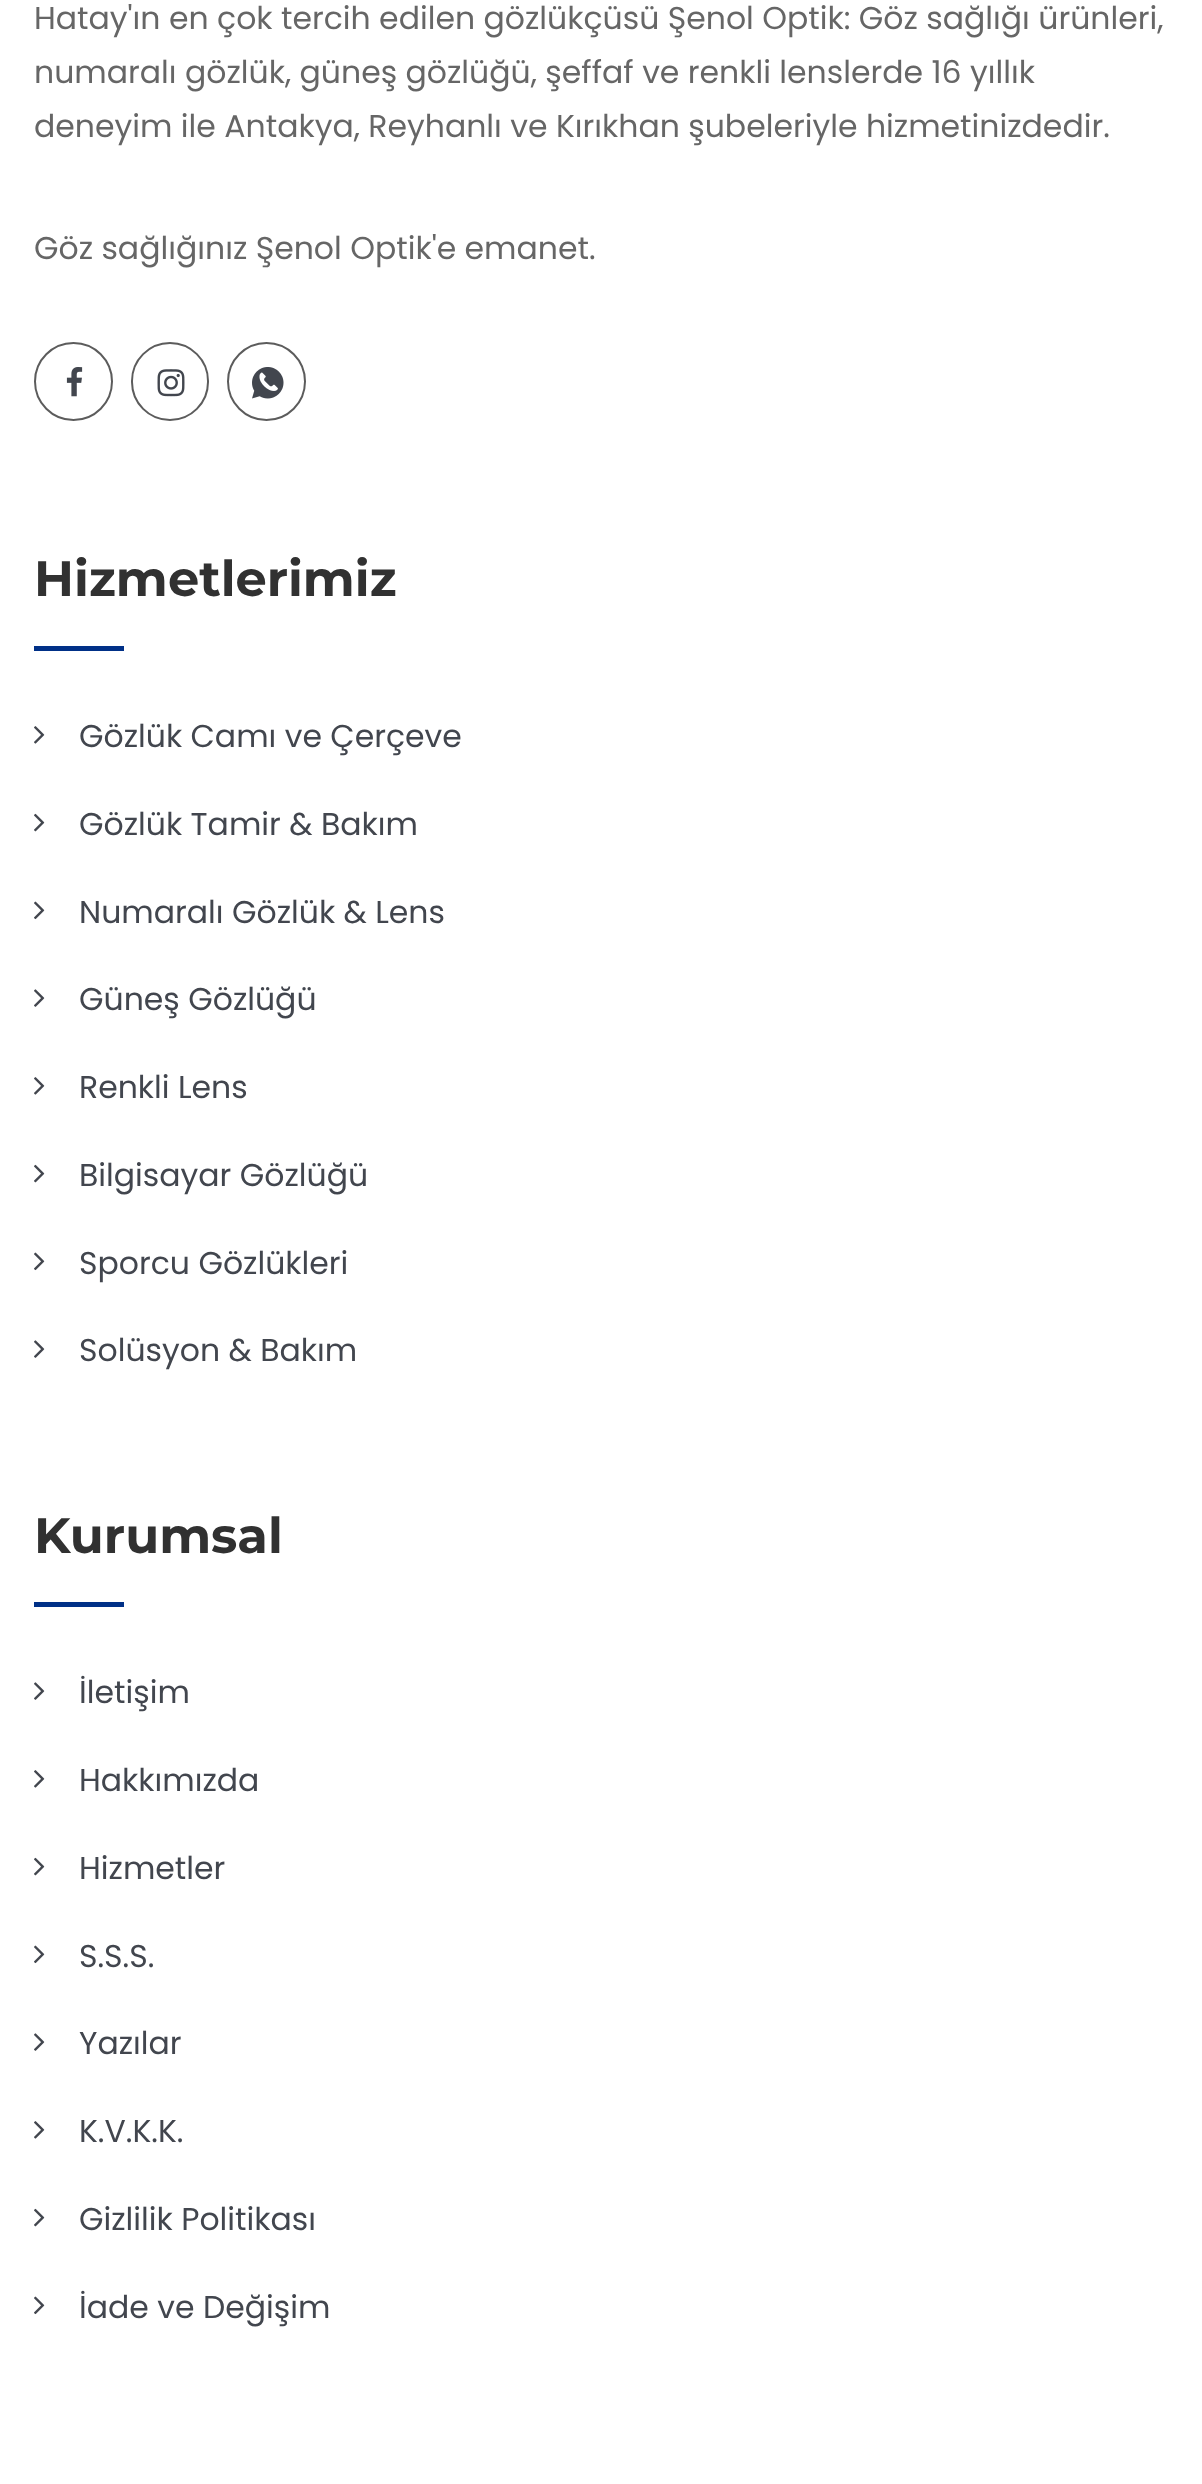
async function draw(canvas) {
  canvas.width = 1202
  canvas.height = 2484
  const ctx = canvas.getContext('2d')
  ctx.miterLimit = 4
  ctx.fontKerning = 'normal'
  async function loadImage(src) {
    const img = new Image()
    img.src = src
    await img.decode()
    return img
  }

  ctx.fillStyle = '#fff'
  ctx.fillRect(0, 0, 1202, 2484)
  ctx.font = '31.5px Poppins'
  ctx.fillStyle = '#666'
  ctx.fillText('Hatay\'ın en çok tercih edilen gözlükçüsü Şenol Optik: Göz sağlığı ürünleri,', 34, 29)
  ctx.fillText('numaralı gözlük, güneş gözlüğü, şeffaf ve renkli lenslerde 16 yıllık', 34, 83)
  ctx.fillText('deneyim ile Antakya, Reyhanlı ve Kırıkhan şubeleriyle hizmetinizdedir.', 34, 137)
  ctx.fillText('Göz sağlığınız Şenol Optik\'e emanet.', 34, 259)
  ctx.beginPath()
  ctx.arc(73.5, 381.5, 38.5, 0, 2 * Math.PI)
  ctx.strokeStyle = '#5c5c5c'
  ctx.lineWidth = 2
  ctx.stroke()
  ctx.drawImage(await loadImage('image0.png'), 66, 367, 17, 30)
  ctx.beginPath()
  ctx.roundRect(132, 343, 76, 77, 38)
  ctx.stroke()
  ctx.drawImage(await loadImage('image1.png'), 157, 369, 28, 28)
  ctx.beginPath()
  ctx.arc(266.5, 381.5, 38.5, 0, 2 * Math.PI)
  ctx.stroke()
  ctx.drawImage(await loadImage('image2.png'), 252, 367, 32, 32)
  ctx.font = 'bold 49.5px Montserrat'
  ctx.fillStyle = '#313131'
  ctx.fillText('Hizmetlerimiz', 34, 596)
  ctx.fillStyle = '#003087'
  ctx.fillRect(34, 646, 90, 5)
  ctx.drawImage(await loadImage('image3.png'), 34, 726, 11, 18)
  ctx.font = '31.5px Poppins'
  ctx.fillStyle = '#42464e'
  ctx.fillText('Gözlük Camı ve Çerçeve', 79, 747)
  ctx.drawImage(await loadImage('image4.png'), 34, 813, 11, 19)
  ctx.fillText('Gözlük Tamir & Bakım', 79, 835)
  ctx.drawImage(await loadImage('image5.png'), 34, 901, 11, 19)
  ctx.fillText('Numaralı Gözlük & Lens', 79, 923)
  ctx.drawImage(await loadImage('image6.png'), 34, 989, 11, 18)
  ctx.fillText('Güneş Gözlüğü', 79, 1010)
  ctx.drawImage(await loadImage('image3.png'), 34, 1077, 11, 18)
  ctx.fillText('Renkli Lens', 79, 1098)
  ctx.drawImage(await loadImage('image4.png'), 34, 1164, 11, 19)
  ctx.fillText('Bilgisayar Gözlüğü', 79, 1186)
  ctx.drawImage(await loadImage('image5.png'), 34, 1252, 11, 19)
  ctx.fillText('Sporcu Gözlükleri', 79, 1274)
  ctx.drawImage(await loadImage('image6.png'), 34, 1340, 11, 18)
  ctx.fillText('Solüsyon & Bakım', 79, 1361)
  ctx.font = 'bold 49.5px Montserrat'
  ctx.fillStyle = '#313131'
  ctx.fillText('Kurumsal', 34, 1553)
  ctx.fillStyle = '#003087'
  ctx.fillRect(34, 1602, 90, 5)
  ctx.drawImage(await loadImage('image6.png'), 34, 1682, 11, 18)
  ctx.font = '31.5px Poppins'
  ctx.fillStyle = '#42464e'
  ctx.fillText('İletişim', 79, 1703)
  ctx.drawImage(await loadImage('image3.png'), 34, 1770, 11, 18)
  ctx.fillText('Hakkımızda', 79, 1791)
  ctx.drawImage(await loadImage('image4.png'), 34, 1857, 11, 19)
  ctx.fillText('Hizmetler', 79, 1879)
  ctx.drawImage(await loadImage('image5.png'), 34, 1945, 11, 19)
  ctx.fillText('S.S.S.', 79, 1967)
  ctx.drawImage(await loadImage('image6.png'), 34, 2033, 11, 18)
  ctx.fillText('Yazılar', 79, 2054)
  ctx.drawImage(await loadImage('image3.png'), 34, 2121, 11, 18)
  ctx.fillText('K.V.K.K.', 79, 2142)
  ctx.drawImage(await loadImage('image4.png'), 34, 2208, 11, 19)
  ctx.fillText('Gizlilik Politikası', 79, 2230)
  ctx.drawImage(await loadImage('image5.png'), 34, 2296, 11, 19)
  ctx.fillText('İade ve Değişim', 79, 2318)
}

draw(document.querySelector('canvas'))
